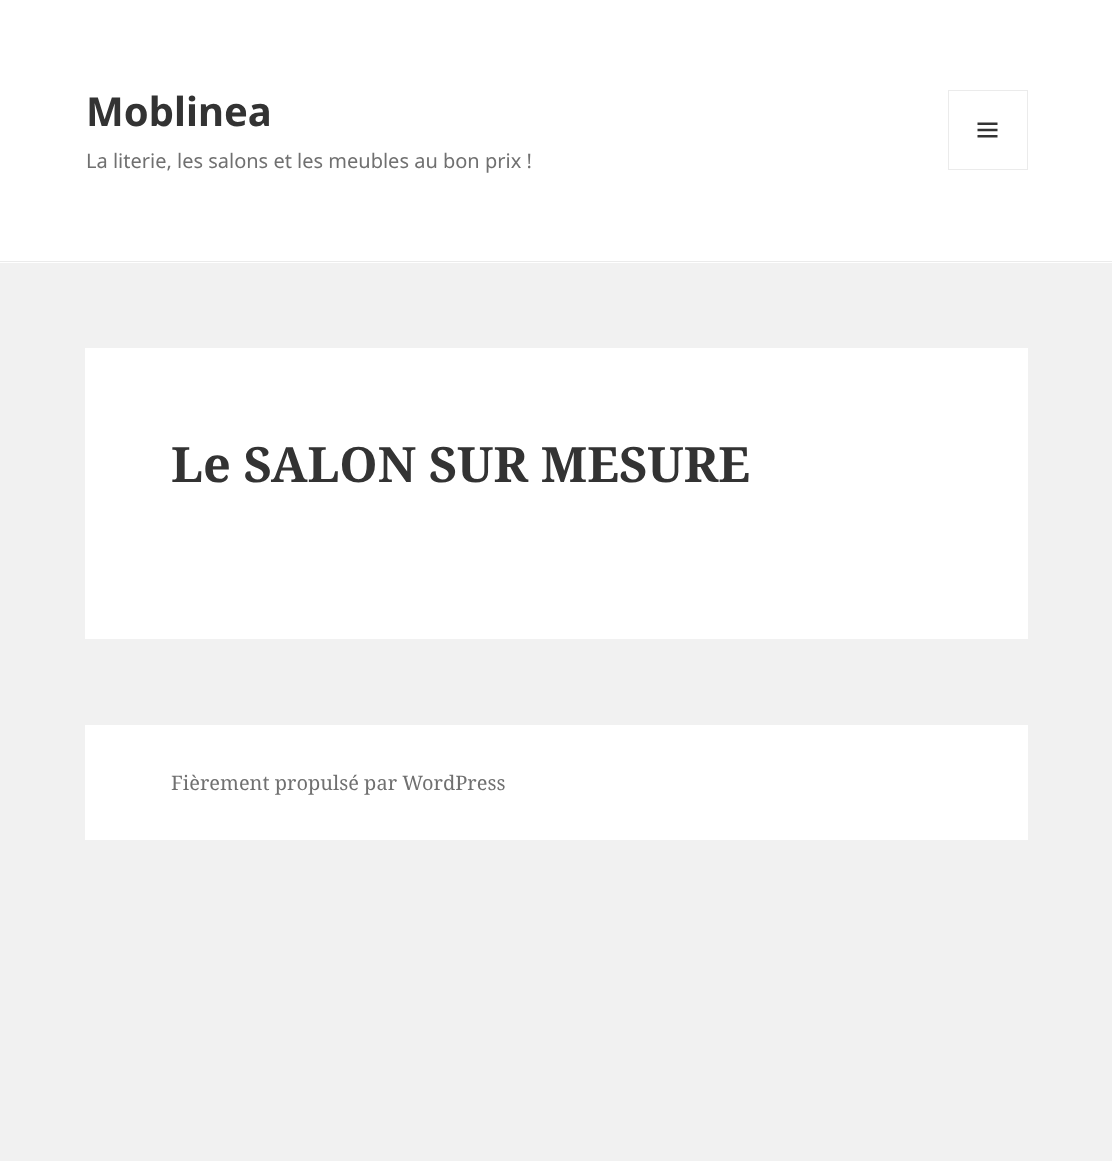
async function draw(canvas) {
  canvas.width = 1112
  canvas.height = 1161
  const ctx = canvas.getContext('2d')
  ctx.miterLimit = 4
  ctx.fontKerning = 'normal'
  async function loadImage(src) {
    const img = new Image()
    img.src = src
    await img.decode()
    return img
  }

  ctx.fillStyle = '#f1f1f1'
  ctx.fillRect(0, 0, 1112, 1161)
  ctx.fillStyle = '#fff'
  ctx.fillRect(0, 0, 1112, 263)
  ctx.fillStyle = '#ebebeb'
  ctx.fillRect(0, 261, 1112, 1)
  ctx.font = 'bold 40px Noto Sans'
  ctx.fillStyle = '#333'
  ctx.fillText('Moblinea', 86, 126)
  ctx.strokeStyle = '#ebebeb'
  ctx.strokeRect(948.5, 90.5, 79, 79)
  ctx.drawImage(await loadImage('image0.png'), 977, 122, 21, 16)
  ctx.font = '20px Noto Sans'
  ctx.fillStyle = '#707070'
  ctx.fillText('La literie, les salons et les meubles au bon prix !', 86, 168)
  ctx.fillStyle = '#fff'
  ctx.fillRect(85, 348, 943, 291)
  ctx.font = 'bold 48.75px Noto Serif'
  ctx.fillStyle = '#333'
  ctx.fillText('Le SALON SUR MESURE', 171, 482)
  ctx.fillStyle = '#fff'
  ctx.fillRect(85, 725, 943, 115)
  ctx.font = '20px Noto Serif'
  ctx.fillStyle = '#707070'
  ctx.fillText('Fièrement propulsé par WordPress', 171, 790)
}

draw(document.querySelector('canvas'))
